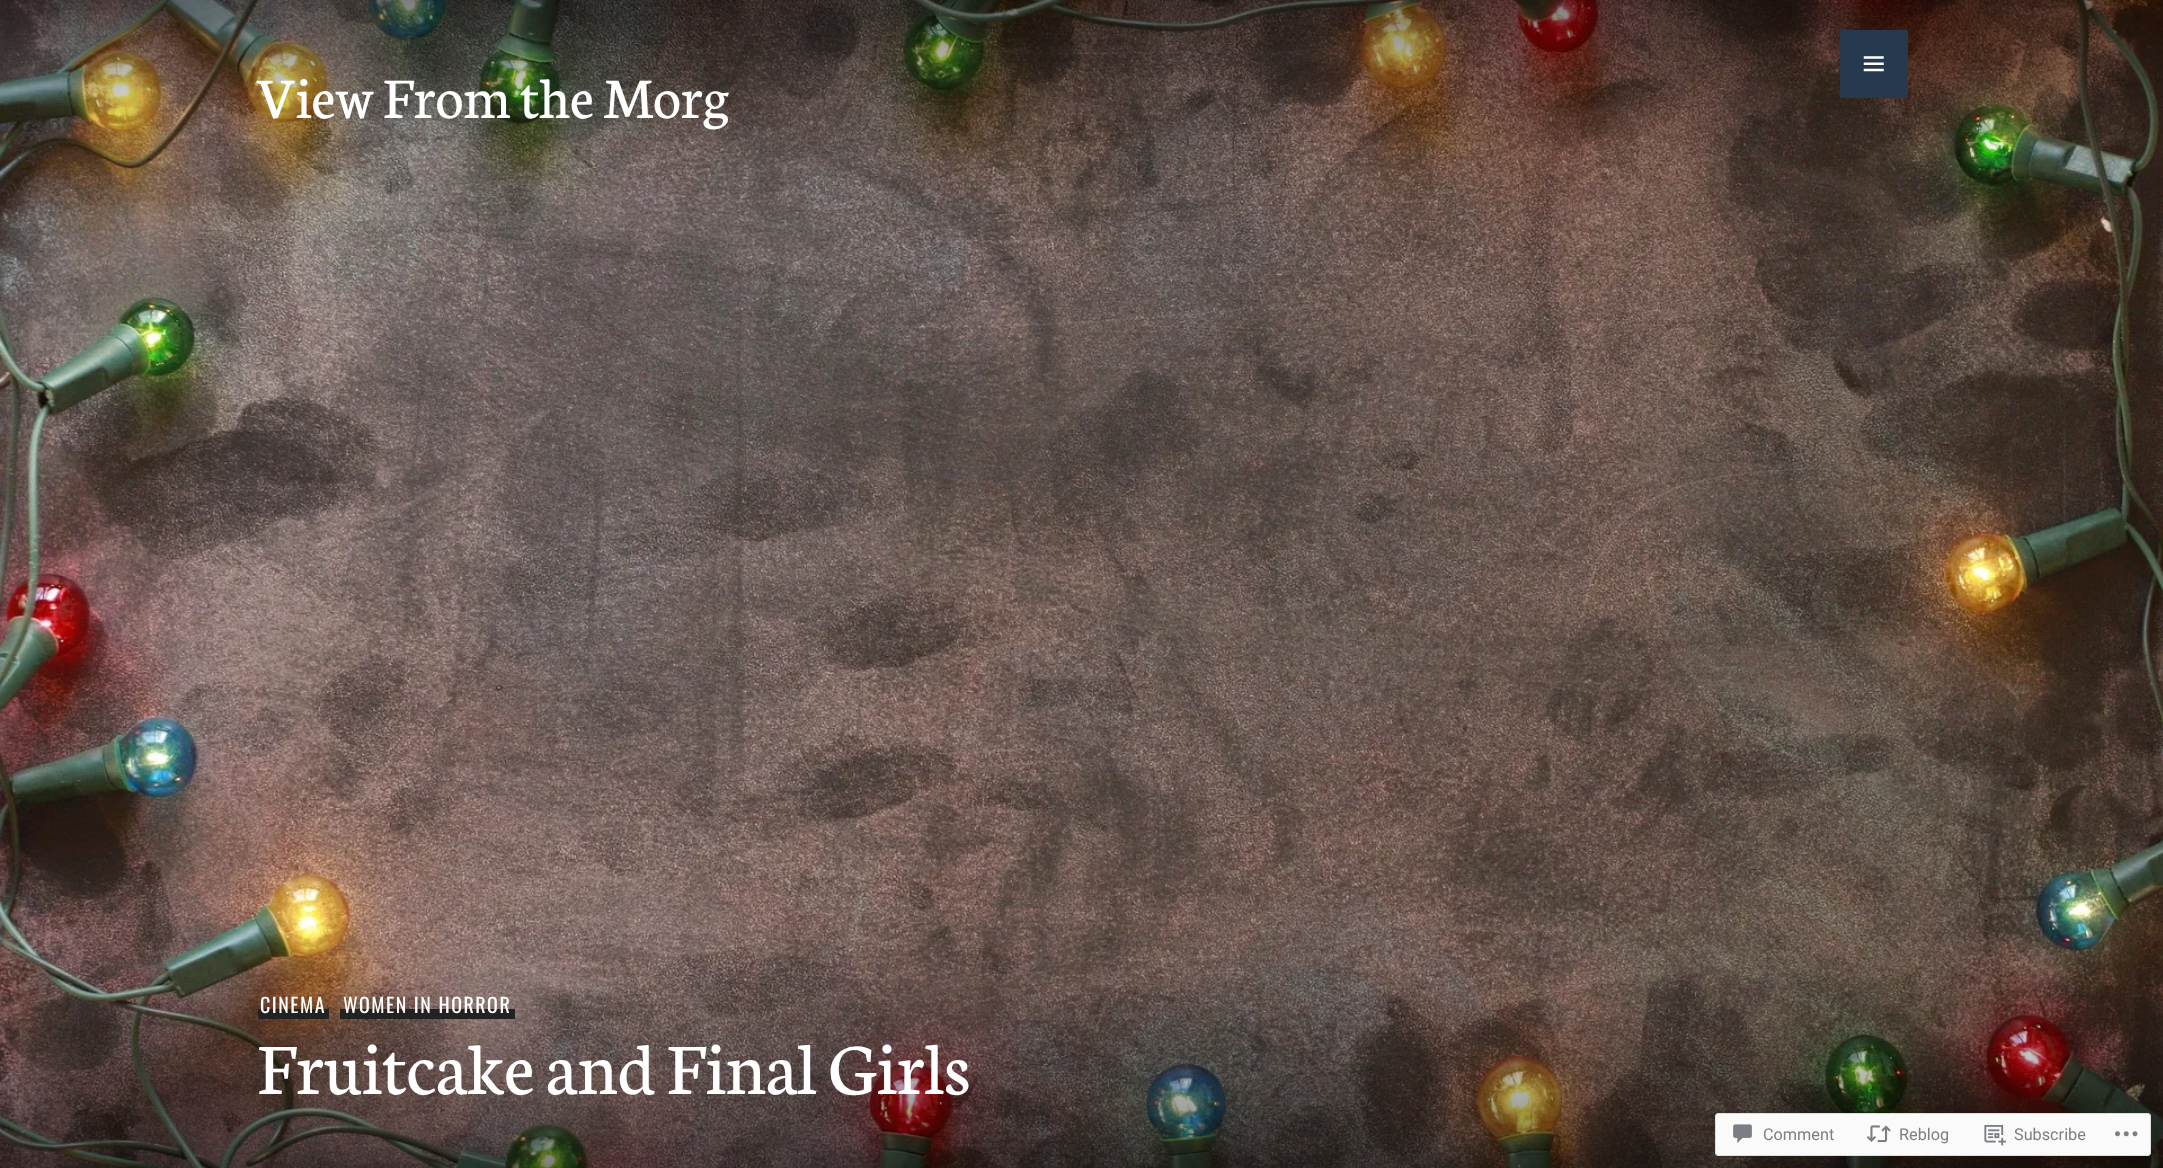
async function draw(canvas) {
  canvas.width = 2163
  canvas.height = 1168
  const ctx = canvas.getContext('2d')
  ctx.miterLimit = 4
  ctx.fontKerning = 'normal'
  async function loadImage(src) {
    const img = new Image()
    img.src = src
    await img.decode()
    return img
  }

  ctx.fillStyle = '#fff'
  ctx.fillRect(0, 0, 2163, 1168)
  ctx.drawImage(await loadImage('image1.png'), 0, 0, 2163, 1168)
  ctx.fillStyle = '#27394e'
  ctx.fillRect(1840, 30, 68, 68)
  ctx.drawImage(await loadImage('image0.png'), 1863, 56, 21, 16)
  ctx.font = '61.25px Neuton'
  ctx.fillStyle = '#fff'
  ctx.fillText('View From the Morg', 257, 118)
  ctx.fillStyle = '#222'
  ctx.fillRect(258, 1009, 71, 10)
  ctx.letterSpacing = '1.5px'
  ctx.font = '20px Oswald'
  ctx.fillStyle = '#fff'
  ctx.fillText('CINEMA', 260, 1013)
  ctx.fillStyle = '#222'
  ctx.fillRect(340, 1009, 175, 10)
  ctx.fillStyle = '#fff'
  ctx.fillText('WOMEN IN HORROR', 343, 1013)
  ctx.letterSpacing = '0px'
  ctx.font = '77.5px Neuton'
  ctx.fillText('Fruitcake and Final Girls', 257, 1094)
  ctx.fillStyle = '#fffffffa'
  ctx.beginPath()
  ctx.roundRect(1715, 1113, 436, 43, 4)
  ctx.fill()
  ctx.beginPath()
  ctx.roundRect(1715.5, 1113.5, 435, 42, 3.5)
  ctx.strokeStyle = '#dcdcdefa'
  ctx.stroke()
  ctx.drawImage(await loadImage('image2.png'), 1733, 1124, 19, 19)
  ctx.font = '16.25px Roboto'
  ctx.fillStyle = '#7b7f84'
  ctx.fillText('Comment', 1763, 1140)
  ctx.drawImage(await loadImage('image3.png'), 1866, 1125, 25, 18)
  ctx.fillText('Reblog', 1899, 1140)
  ctx.drawImage(await loadImage('image4.png'), 1984, 1125, 22, 21)
  ctx.fillText('Subscribe', 2014, 1140)
  ctx.drawImage(await loadImage('image5.png'), 2115, 1131, 23, 6)
}

draw(document.querySelector('canvas'))
